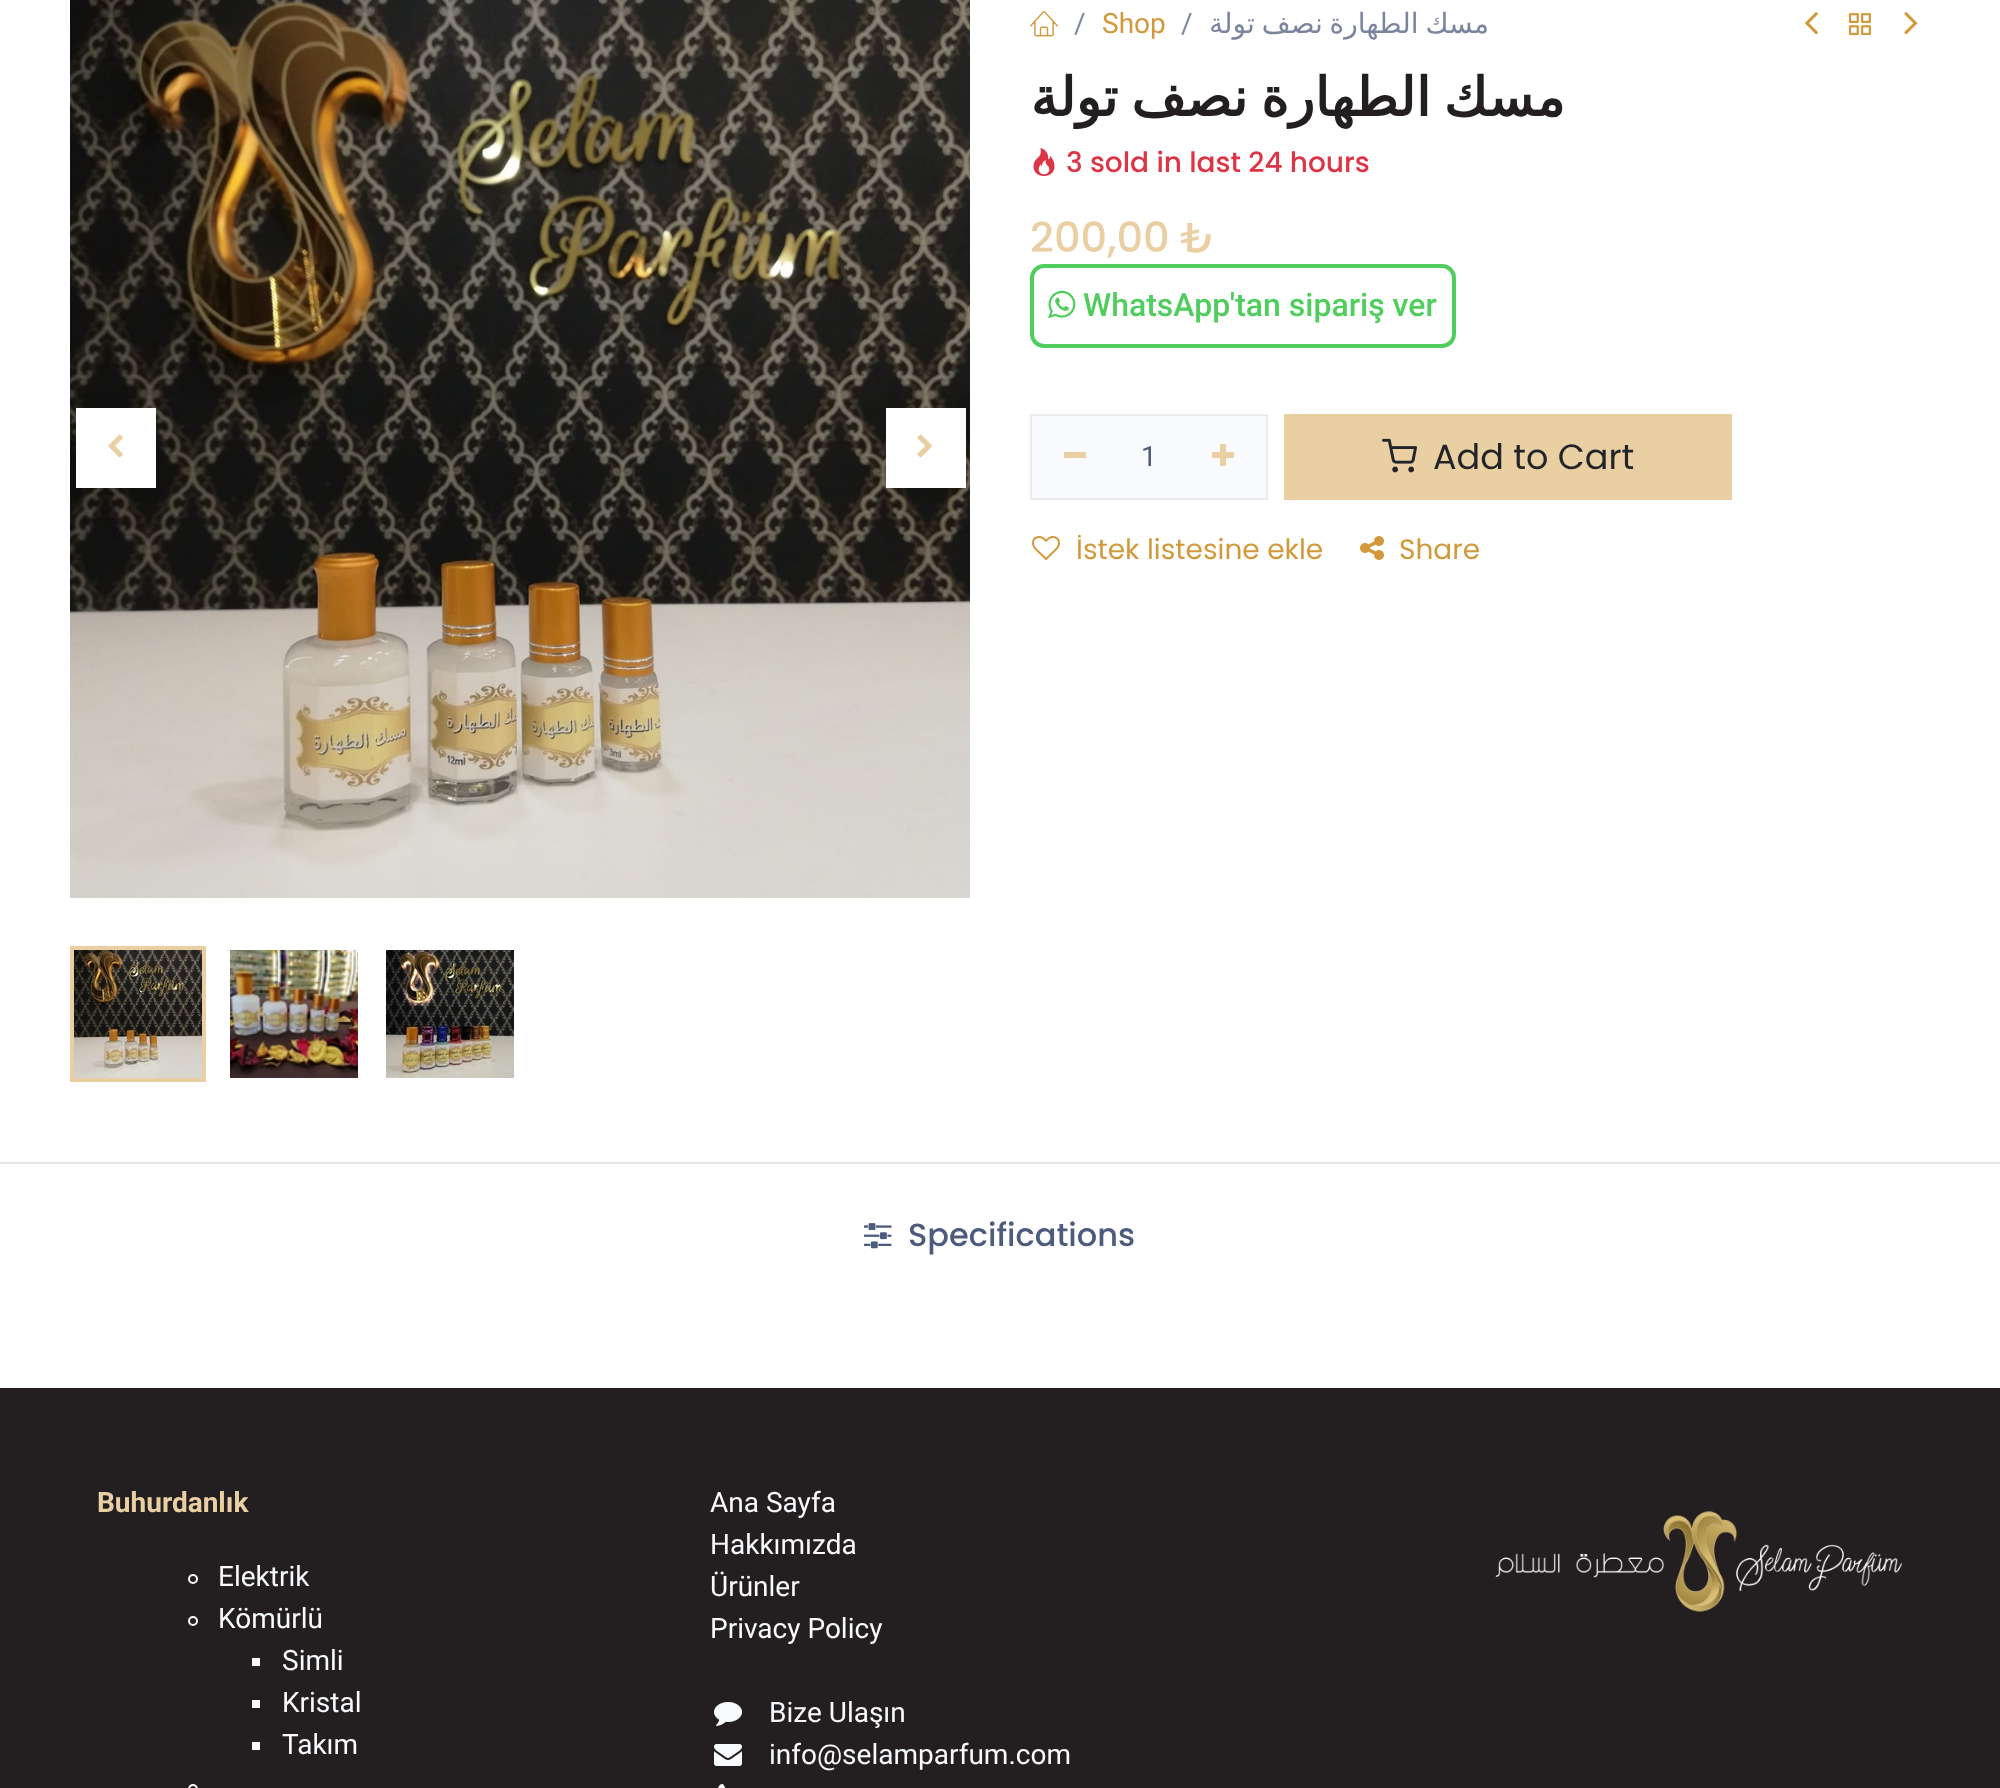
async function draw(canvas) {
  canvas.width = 2000
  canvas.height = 1788
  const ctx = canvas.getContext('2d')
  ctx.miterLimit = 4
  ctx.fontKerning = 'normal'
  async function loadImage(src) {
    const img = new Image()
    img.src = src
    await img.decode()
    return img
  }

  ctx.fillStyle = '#fff'
  ctx.fillRect(0, 0, 2000, 1788)
  ctx.drawImage(await loadImage('image0.png'), 70, 0, 900, 898)
  ctx.save()
  ctx.beginPath()
  ctx.rect(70, 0, 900, 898)
  ctx.clip()
  ctx.fillStyle = '#00000026'
  ctx.filter = 'blur(16px)'
  ctx.beginPath()
  ctx.rect(76, 424, 80, 80)
  ctx.fill()
  ctx.filter = 'none'
  ctx.restore()
  ctx.fillRect(76, 408, 80, 80)
  ctx.drawImage(await loadImage('image1.png'), 108, 434, 15, 24)
  ctx.save()
  ctx.beginPath()
  ctx.rect(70, 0, 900, 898)
  ctx.clip()
  ctx.fillStyle = '#00000026'
  ctx.filter = 'blur(16px)'
  ctx.beginPath()
  ctx.rect(886, 424, 80, 80)
  ctx.fill()
  ctx.filter = 'none'
  ctx.restore()
  ctx.fillRect(886, 408, 80, 80)
  ctx.drawImage(await loadImage('image2.png'), 917, 434, 15, 24)
  ctx.strokeStyle = '#eacfa3'
  ctx.lineWidth = 4
  ctx.strokeRect(72, 948, 132, 132)
  ctx.drawImage(await loadImage('image3.png'), 74, 950, 128, 128)
  ctx.drawImage(await loadImage('image4.png'), 230, 950, 128, 128)
  ctx.drawImage(await loadImage('image5.png'), 386, 950, 128, 128)
  ctx.drawImage(await loadImage('image6.png'), 1030, 11, 28, 26)
  ctx.font = '28px Roboto'
  ctx.fillStyle = '#7a849d'
  ctx.fillText('/', 1074, 33)
  ctx.fillStyle = '#d2993b'
  ctx.fillText('Shop', 1102, 33)
  ctx.fillStyle = '#7a849d'
  ctx.fillText('/', 1181, 33)
  ctx.wordSpacing = '-2px'
  ctx.direction = 'rtl'
  ctx.font = '28px DejaVu Sans'
  ctx.fillText('مسك الطهارة نصف تولة', 1489, 33)
  ctx.drawImage(await loadImage('image7.png'), 1805, 12, 13, 23)
  ctx.drawImage(await loadImage('image8.png'), 1848, 13, 23, 23)
  ctx.drawImage(await loadImage('image9.png'), 1904, 12, 14, 23)
  ctx.wordSpacing = '-4px'
  ctx.font = 'bold 53.5px DejaVu Sans'
  ctx.fillStyle = '#231f20'
  ctx.fillText('مسك الطهارة نصف تولة', 1565, 116)
  ctx.drawImage(await loadImage('image10.png'), 1033, 148, 22, 28)
  ctx.wordSpacing = '0px'
  ctx.direction = 'ltr'
  ctx.font = '500 28px Poppins'
  ctx.fillStyle = '#dc3545'
  ctx.fillText('3 sold in last 24 hours', 1066, 172)
  ctx.font = '500 41.5px Poppins'
  ctx.fillStyle = '#eacfa3'
  ctx.fillText('200,00 ₺', 1030, 252)
  ctx.beginPath()
  ctx.roundRect(1032, 266, 422, 80, 12)
  ctx.strokeStyle = '#4fce5d'
  ctx.stroke()
  ctx.drawImage(await loadImage('image11.png'), 1048, 290, 28, 29)
  ctx.font = '500 32px Roboto'
  ctx.fillStyle = '#4fce5d'
  ctx.fillText('WhatsApp\'tan sipariş ver', 1083, 316)
  ctx.fillStyle = '#f9fafe'
  ctx.beginPath()
  ctx.rect(1031, 415, 236, 84)
  ctx.fill()
  ctx.strokeStyle = '#e9ecef'
  ctx.lineWidth = 2
  ctx.stroke()
  ctx.fillStyle = '#eacfa3'
  ctx.fillRect(1064, 452, 22, 6)
  ctx.font = '28px Roboto'
  ctx.fillStyle = '#4d5b7c'
  ctx.fillText('1', 1141, 466)
  ctx.drawImage(await loadImage('image12.png'), 1212, 444, 22, 22)
  ctx.fillStyle = '#eacfa3'
  ctx.fillRect(1284, 414, 448, 86)
  ctx.drawImage(await loadImage('image13.png'), 1382, 438, 35, 35)
  ctx.font = '35px Poppins'
  ctx.fillStyle = '#212529'
  ctx.fillText('Add to Cart', 1433, 469)
  ctx.drawImage(await loadImage('image14.png'), 1032, 536, 28, 24)
  ctx.font = '28px Poppins'
  ctx.fillStyle = '#d2993b'
  ctx.fillText('İstek listesine ekle', 1076, 559)
  ctx.drawImage(await loadImage('image15.png'), 1360, 536, 24, 24)
  ctx.fillText('Share', 1399, 559)
  ctx.fillStyle = '#e4e6eb'
  ctx.fillRect(0, 1162, 2000, 2)
  ctx.drawImage(await loadImage('image16.png'), 864, 1223, 28, 26)
  ctx.font = '500 32px Poppins'
  ctx.fillStyle = '#4d5b7c'
  ctx.fillText('Specifications', 908, 1246)
  ctx.fillStyle = '#231f20'
  ctx.fillRect(0, 1388, 2000, 400)
  ctx.font = 'bold 28px Roboto'
  ctx.fillStyle = '#eacfa3'
  ctx.fillText('Buhurdanlık', 97, 1512)
  ctx.beginPath()
  ctx.arc(193, 1579, 4, 0, 2 * Math.PI)
  ctx.strokeStyle = '#f9fafe'
  ctx.stroke()
  ctx.font = '28px Roboto'
  ctx.fillStyle = '#f9fafe'
  ctx.fillText('Elektrik', 218, 1586)
  ctx.beginPath()
  ctx.arc(193, 1621, 4, 0, 2 * Math.PI)
  ctx.stroke()
  ctx.fillText('Kömürlü', 218, 1628)
  ctx.fillRect(252, 1658, 8, 8)
  ctx.fillText('Simli', 282, 1670)
  ctx.fillRect(252, 1700, 8, 8)
  ctx.fillText('Kristal', 282, 1712)
  ctx.fillRect(252, 1742, 8, 8)
  ctx.fillText('Takım', 282, 1754)
  ctx.beginPath()
  ctx.arc(193, 1789, 4, 0, 2 * Math.PI)
  ctx.stroke()
  ctx.fillText('Ana Sayfa', 710, 1512)
  ctx.fillText('Hakkımızda', 710, 1554)
  ctx.fillText('Ürünler', 710, 1596)
  ctx.fillText('Privacy Policy', 710, 1638)
  ctx.drawImage(await loadImage('image17.png'), 714, 1702, 28, 24)
  ctx.fillText('Bize Ulaşın', 769, 1722)
  ctx.drawImage(await loadImage('image18.png'), 714, 1744, 28, 22)
  ctx.fillText('info@selamparfum.com', 769, 1764)
  ctx.drawImage(await loadImage('image19.png'), 718, 1784, 8, 4)
  ctx.drawImage(await loadImage('image20.png'), 1495, 1511, 407, 101)
}

draw(document.querySelector('canvas'))
